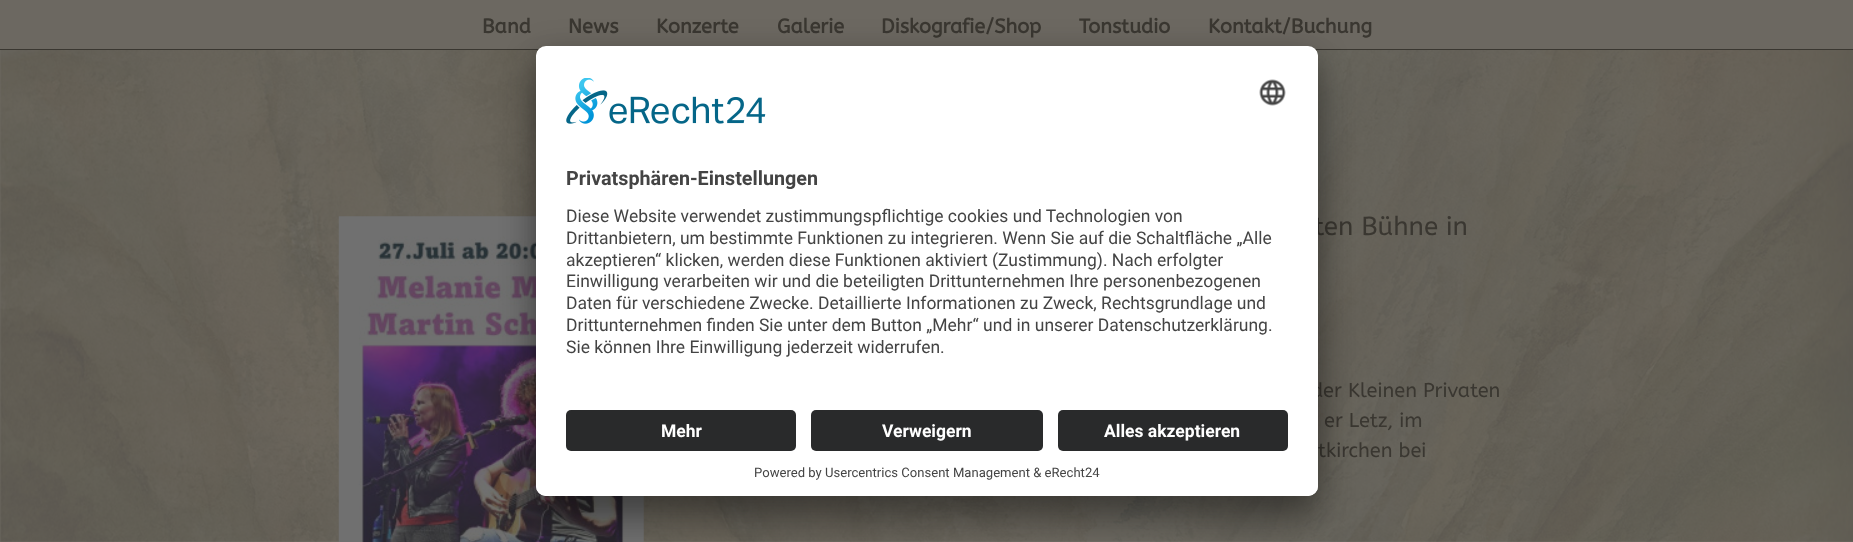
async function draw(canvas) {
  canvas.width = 1853
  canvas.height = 542
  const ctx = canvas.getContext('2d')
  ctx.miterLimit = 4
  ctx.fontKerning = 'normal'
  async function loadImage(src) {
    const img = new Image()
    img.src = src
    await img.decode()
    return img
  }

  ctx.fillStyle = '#fff'
  ctx.fillRect(0, 0, 1853, 542)
  ctx.drawImage(await loadImage('image0.png'), 0, 50, 1853, 492)
  ctx.fillStyle = '#6c6861'
  ctx.fillRect(0, 0, 1853, 49)
  ctx.fillStyle = '#3a3731'
  ctx.fillRect(0, 49, 1853, 1)
  ctx.font = 'bold 20px ABeeZee'
  ctx.fillText('Band', 482, 33)
  ctx.fillText('News', 568, 33)
  ctx.fillText('Konzerte', 656, 33)
  ctx.fillText('Galerie', 777, 33)
  ctx.fillText('Diskografie/Shop', 881, 33)
  ctx.fillText('Tonstudio', 1079, 33)
  ctx.fillText('Kontakt/Buchung', 1208, 33)
  ctx.drawImage(await loadImage('image1.png'), 338, 216, 306, 326)
  ctx.font = '26px ABeeZee'
  ctx.fillText('ten Bühne in', 1314, 235)
  ctx.font = '20px ABeeZee'
  ctx.fillText('der Kleinen Privaten', 1311, 397)
  ctx.fillText('er Letz, im', 1324, 427)
  ctx.fillText('tkirchen bei', 1318, 457)
  ctx.fillStyle = '#0000004d'
  ctx.filter = 'blur(17.5px)'
  ctx.beginPath()
  ctx.roundRect(536, 71, 782, 450, 10)
  ctx.fill()
  ctx.filter = 'none'
  ctx.fillStyle = '#00000038'
  ctx.filter = 'blur(16px)'
  ctx.beginPath()
  ctx.roundRect(536, 53, 782, 450, 10)
  ctx.fill()
  ctx.filter = 'none'
  ctx.fillStyle = '#fff'
  ctx.beginPath()
  ctx.roundRect(536, 46, 782, 450, 10)
  ctx.fill()
  ctx.save()
  ctx.beginPath()
  ctx.roundRect(536, 46, 782, 450, 10)
  ctx.clip()
  ctx.beginPath()
  ctx.roundRect(536, 46, 782, 354, [10, 10, 0, 0])
  ctx.clip()
  ctx.fillRect(536, 48, 782, 352)
  ctx.restore()
  ctx.drawImage(await loadImage('image2.png'), 566, 78, 200, 46)
  ctx.drawImage(await loadImage('image3.png'), 1259, 79, 27, 27)
  ctx.font = 'bold 19.75px Roboto'
  ctx.fillStyle = '#444'
  ctx.fillText('Privatsphären-Einstellungen', 566, 185)
  ctx.font = '17.5px Roboto'
  ctx.fillText('Diese Website verwendet zustimmungspflichtige cookies und Technologien von', 566, 222)
  ctx.fillText('Drittanbietern, um bestimmte Funktionen zu integrieren. Wenn Sie auf die Schaltfläche „Alle', 566, 244)
  ctx.fillText('akzeptieren“ klicken, werden diese Funktionen aktiviert (Zustimmung). Nach erfolgter', 566, 266)
  ctx.fillText('Einwilligung verarbeiten wir und die beteiligten Drittunternehmen Ihre personenbezogenen', 566, 287)
  ctx.fillText('Daten für verschiedene Zwecke. Detaillierte Informationen zu Zweck, Rechtsgrundlage und', 566, 309)
  ctx.fillText('Drittunternehmen finden Sie unter dem Button „Mehr“ und in unserer Datenschutzerklärung.', 566, 331)
  ctx.fillText('Sie können Ihre Einwilligung jederzeit widerrufen.', 566, 353)
  ctx.fillStyle = '#fff'
  ctx.beginPath()
  ctx.roundRect(536, 400, 782, 96, [0, 0, 10, 10])
  ctx.fill()
  ctx.fillStyle = '#292a2b'
  ctx.beginPath()
  ctx.roundRect(566, 410, 230, 41, 5)
  ctx.fill()
  ctx.font = 'bold 17.5px Roboto'
  ctx.fillStyle = '#fff'
  ctx.fillText('Mehr', 661, 437)
  ctx.fillStyle = '#292a2b'
  ctx.beginPath()
  ctx.roundRect(811, 410, 232, 41, 5)
  ctx.fill()
  ctx.fillStyle = '#fff'
  ctx.fillText('Verweigern', 882, 437)
  ctx.fillStyle = '#292a2b'
  ctx.beginPath()
  ctx.roundRect(1058, 410, 230, 41, 5)
  ctx.fill()
  ctx.fillStyle = '#fff'
  ctx.fillText('Alles akzeptieren', 1104, 437)
  ctx.font = '13.1px Roboto'
  ctx.fillStyle = '#444'
  ctx.fillText('Powered by Usercentrics Consent Management & eRecht24', 754, 477)
}

draw(document.querySelector('canvas'))
